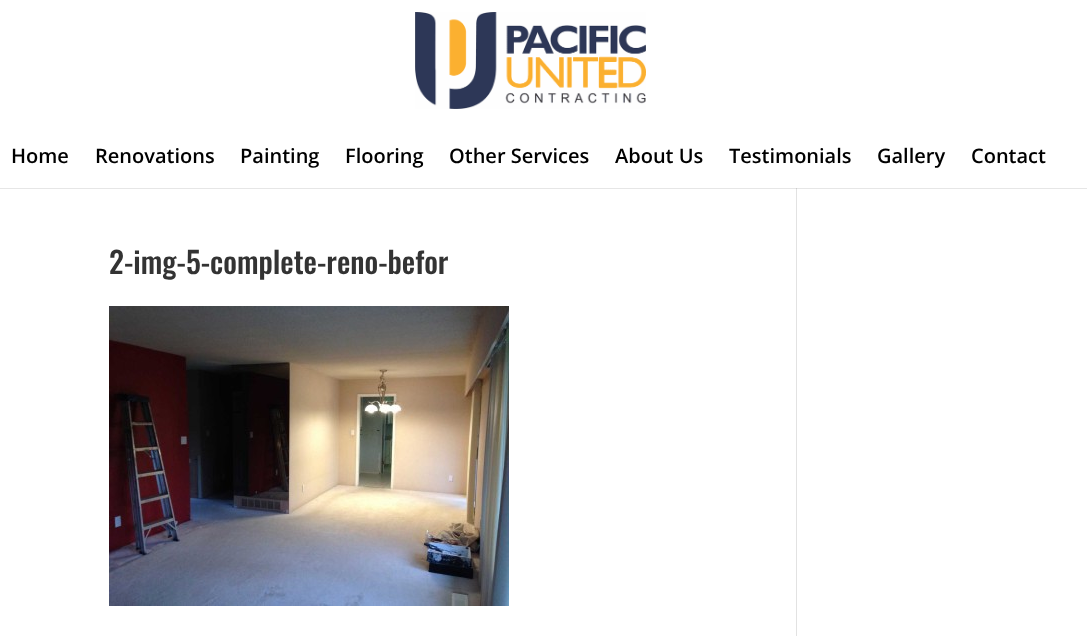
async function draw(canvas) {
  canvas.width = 1087
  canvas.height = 636
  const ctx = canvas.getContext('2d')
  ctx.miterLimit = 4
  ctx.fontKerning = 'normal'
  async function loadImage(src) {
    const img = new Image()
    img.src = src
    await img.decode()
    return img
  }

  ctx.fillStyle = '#fff'
  ctx.fillRect(0, 0, 1087, 636)
  ctx.fillStyle = '#e6e6e6'
  ctx.fillRect(0, 188, 1087, 1)
  ctx.drawImage(await loadImage('image0.png'), 415, 12, 231, 97)
  ctx.font = '600 20px Open Sans'
  ctx.fillStyle = '#000'
  ctx.fillText('Home', 11, 163)
  ctx.fillText('Renovations', 95, 163)
  ctx.fillText('Painting', 240, 163)
  ctx.fillText('Flooring', 345, 163)
  ctx.fillText('Other Services', 449, 163)
  ctx.fillText('About Us', 615, 163)
  ctx.fillText('Testimonials', 729, 163)
  ctx.fillText('Gallery', 877, 163)
  ctx.fillText('Contact', 971, 163)
  ctx.font = '500 30px Oswald'
  ctx.fillStyle = '#333'
  ctx.fillText('2-img-5-complete-reno-befor', 109, 274)
  ctx.drawImage(await loadImage('image1.png'), 109, 306, 400, 300)
  ctx.fillStyle = '#e2e2e2'
  ctx.fillRect(796, 188, 1, 448)
  ctx.fillStyle = '#cbcbcb'
  ctx.fillRect(796, 188, 1, 1)
}

draw(document.querySelector('canvas'))
